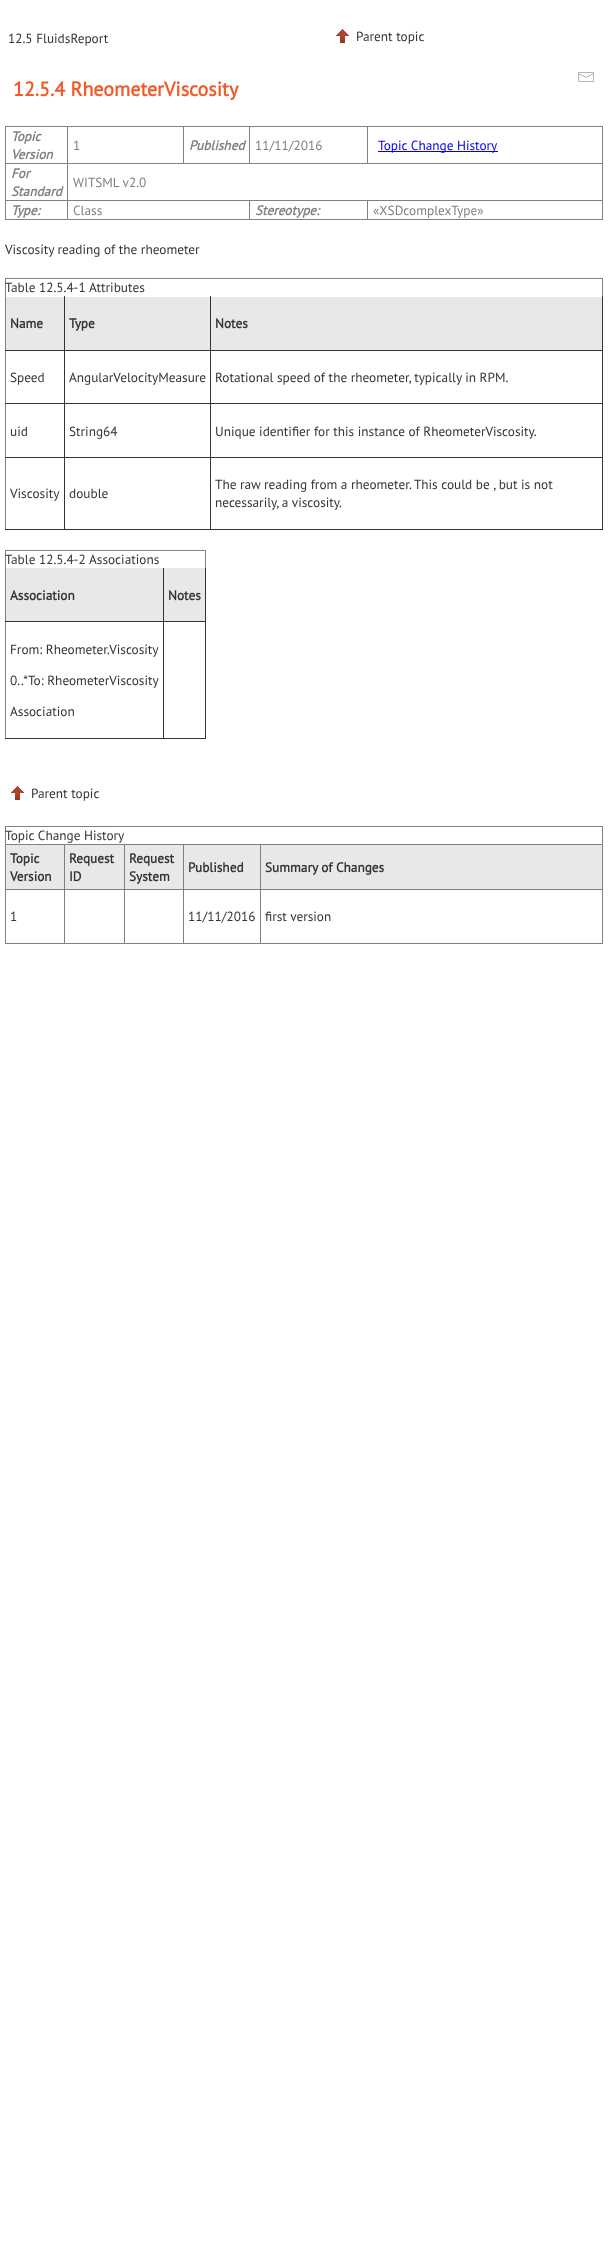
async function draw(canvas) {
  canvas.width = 611
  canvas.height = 2256
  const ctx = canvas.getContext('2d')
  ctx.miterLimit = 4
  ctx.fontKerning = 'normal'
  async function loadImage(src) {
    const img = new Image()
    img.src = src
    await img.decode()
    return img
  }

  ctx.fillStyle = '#fff'
  ctx.fillRect(0, 0, 611, 2256)
  ctx.font = '13.3px PT Sans'
  ctx.fillStyle = '#33333c'
  ctx.fillText('12.5 FluidsReport', 8, 43)
  ctx.drawImage(await loadImage('image0.png'), 336, 29, 13, 14)
  ctx.fillText('Parent topic', 356, 41)
  ctx.drawImage(await loadImage('image1.png'), 578, 72, 16, 10)
  ctx.font = 'bold 20px PT Sans'
  ctx.fillStyle = '#f15a29'
  ctx.fillText('12.5.4 RheometerViscosity', 13, 96)
  ctx.fillStyle = '#808080'
  ctx.fillRect(5, 126, 598, 1)
  ctx.fillRect(602, 126, 1, 94)
  ctx.fillRect(5, 219, 598, 1)
  ctx.fillRect(5, 126, 1, 94)
  ctx.font = 'italic bold 13.3px PT Sans'
  ctx.fillText('Topic', 11, 141)
  ctx.fillText('Version', 11, 159)
  ctx.fillRect(67, 163, 536, 1)
  ctx.fillRect(367, 200, 236, 1)
  ctx.fillRect(367, 200, 1, 20)
  ctx.fillRect(249, 200, 119, 1)
  ctx.fillRect(249, 200, 1, 20)
  ctx.fillRect(67, 200, 183, 1)
  ctx.fillRect(67, 200, 1, 20)
  ctx.fillRect(5, 200, 63, 1)
  ctx.fillRect(67, 163, 1, 38)
  ctx.fillRect(5, 163, 63, 1)
  ctx.fillRect(67, 126, 1, 38)
  ctx.font = '13.3px PT Sans'
  ctx.fillText('1', 73, 150)
  ctx.fillRect(183, 126, 1, 38)
  ctx.font = 'italic bold 13.3px PT Sans'
  ctx.fillText('Published', 189, 150)
  ctx.fillRect(249, 126, 1, 38)
  ctx.font = '13.3px PT Sans'
  ctx.fillText('11/11/2016', 255, 150)
  ctx.fillRect(367, 126, 1, 38)
  ctx.fillStyle = '#00e'
  ctx.fillRect(378, 151, 120, 1)
  ctx.fillText('Topic Change History', 378, 150)
  ctx.font = 'italic bold 13.3px PT Sans'
  ctx.fillStyle = '#808080'
  ctx.fillText('For', 11, 178)
  ctx.fillText('Standard', 11, 196)
  ctx.font = '13.3px PT Sans'
  ctx.fillText('WITSML v2.0', 73, 187)
  ctx.font = 'italic bold 13.3px PT Sans'
  ctx.fillText('Type:', 11, 215)
  ctx.font = '13.3px PT Sans'
  ctx.fillText('Class', 73, 215)
  ctx.font = 'italic bold 13.3px PT Sans'
  ctx.fillText('Stereotype:', 255, 215)
  ctx.font = '13.3px PT Sans'
  ctx.fillText('«XSDcomplexType»', 373, 215)
  ctx.fillStyle = '#33333c'
  ctx.fillText('Viscosity reading of the rheometer', 5, 254)
  ctx.fillStyle = '#808080'
  ctx.fillRect(5, 278, 598, 1)
  ctx.fillRect(602, 278, 1, 18)
  ctx.fillRect(5, 278, 1, 252)
  ctx.fillStyle = '#33333c'
  ctx.fillText('Table 12.5.4-1', 5, 292)
  ctx.fillText('Attributes', 89, 292)
  ctx.fillStyle = '#e8e8e8'
  ctx.fillRect(6, 297, 596, 53)
  ctx.fillStyle = '#33333c'
  ctx.fillRect(602, 296, 1, 234)
  ctx.fillRect(210, 529, 393, 1)
  ctx.fillRect(210, 457, 1, 73)
  ctx.fillRect(210, 457, 393, 1)
  ctx.fillRect(210, 403, 1, 55)
  ctx.fillRect(210, 403, 393, 1)
  ctx.fillRect(210, 350, 1, 54)
  ctx.fillRect(210, 350, 393, 1)
  ctx.fillRect(210, 296, 1, 55)
  ctx.fillRect(64, 529, 147, 1)
  ctx.fillRect(64, 457, 1, 73)
  ctx.fillRect(64, 457, 147, 1)
  ctx.fillRect(64, 403, 1, 55)
  ctx.fillRect(64, 403, 147, 1)
  ctx.fillRect(64, 350, 1, 54)
  ctx.fillRect(64, 350, 147, 1)
  ctx.fillRect(64, 296, 1, 55)
  ctx.fillRect(5, 350, 60, 1)
  ctx.font = 'bold 13.3px PT Sans'
  ctx.fillText('Name', 10, 328)
  ctx.fillText('Type', 69, 328)
  ctx.fillText('Notes', 215, 328)
  ctx.fillRect(5, 403, 60, 1)
  ctx.font = '13.3px PT Sans'
  ctx.fillText('Speed', 10, 382)
  ctx.fillText('AngularVelocityMeasure', 69, 382)
  ctx.fillText('Rotational speed of the rheometer, typically in RPM.', 215, 382)
  ctx.fillRect(5, 457, 60, 1)
  ctx.fillText('uid', 10, 436)
  ctx.fillText('String64', 69, 436)
  ctx.fillText('Unique identifier for this instance of RheometerViscosity.', 215, 436)
  ctx.fillRect(5, 529, 60, 1)
  ctx.fillText('Viscosity', 10, 498)
  ctx.fillText('double', 69, 498)
  ctx.fillText('The raw reading from a rheometer. This could be , but is not', 215, 489)
  ctx.fillText('necessarily, a viscosity.', 215, 507)
  ctx.fillStyle = '#808080'
  ctx.fillRect(5, 550, 201, 1)
  ctx.fillRect(205, 550, 1, 18)
  ctx.fillRect(5, 550, 1, 189)
  ctx.fillStyle = '#33333c'
  ctx.fillText('Table 12.5.4-2', 5, 564)
  ctx.fillText('Associations', 89, 564)
  ctx.fillStyle = '#e8e8e8'
  ctx.fillRect(6, 568, 199, 53)
  ctx.fillStyle = '#33333c'
  ctx.fillRect(205, 568, 1, 171)
  ctx.fillRect(163, 738, 43, 1)
  ctx.fillRect(163, 621, 1, 118)
  ctx.fillRect(163, 621, 43, 1)
  ctx.fillRect(163, 568, 1, 54)
  ctx.fillRect(5, 621, 159, 1)
  ctx.font = 'bold 13.3px PT Sans'
  ctx.fillText('Association', 10, 600)
  ctx.fillText('Notes', 168, 600)
  ctx.fillRect(5, 738, 159, 1)
  ctx.font = '13.3px PT Sans'
  ctx.fillText('From: Rheometer.Viscosity', 10, 654)
  ctx.fillText('0..*To: RheometerViscosity', 10, 685)
  ctx.fillText('Association', 10, 716)
  ctx.drawImage(await loadImage('image0.png'), 11, 786, 13, 14)
  ctx.fillText('Parent topic', 31, 798)
  ctx.fillStyle = '#808080'
  ctx.fillRect(5, 826, 598, 1)
  ctx.fillRect(602, 826, 1, 118)
  ctx.fillRect(5, 943, 598, 1)
  ctx.fillRect(5, 826, 1, 118)
  ctx.fillStyle = '#33333c'
  ctx.fillText('Topic Change History', 5, 840)
  ctx.fillStyle = '#e8e8e8'
  ctx.fillRect(6, 845, 596, 44)
  ctx.fillStyle = '#808080'
  ctx.fillRect(260, 844, 343, 1)
  ctx.fillRect(260, 889, 343, 1)
  ctx.fillRect(260, 889, 1, 55)
  ctx.fillRect(183, 889, 78, 1)
  ctx.fillRect(260, 844, 1, 46)
  ctx.fillRect(183, 844, 78, 1)
  ctx.fillRect(183, 889, 1, 55)
  ctx.fillRect(124, 889, 60, 1)
  ctx.fillRect(183, 844, 1, 46)
  ctx.fillRect(124, 844, 60, 1)
  ctx.fillRect(124, 889, 1, 55)
  ctx.fillRect(64, 889, 61, 1)
  ctx.fillRect(124, 844, 1, 46)
  ctx.fillRect(64, 844, 61, 1)
  ctx.fillRect(64, 889, 1, 55)
  ctx.fillRect(5, 889, 60, 1)
  ctx.fillRect(64, 844, 1, 46)
  ctx.fillRect(5, 844, 60, 1)
  ctx.font = 'bold 13.3px PT Sans'
  ctx.fillStyle = '#33333c'
  ctx.fillText('Topic', 10, 863)
  ctx.fillText('Version', 10, 881)
  ctx.fillText('Request', 69, 863)
  ctx.fillText('ID', 69, 881)
  ctx.fillText('Request', 129, 863)
  ctx.fillText('System', 129, 881)
  ctx.fillText('Published', 188, 872)
  ctx.fillText('Summary of Changes', 265, 872)
  ctx.font = '13.3px PT Sans'
  ctx.fillText('1', 10, 921)
  ctx.fillText('11/11/2016', 188, 921)
  ctx.fillText('first version', 265, 921)
}

draw(document.querySelector('canvas'))
